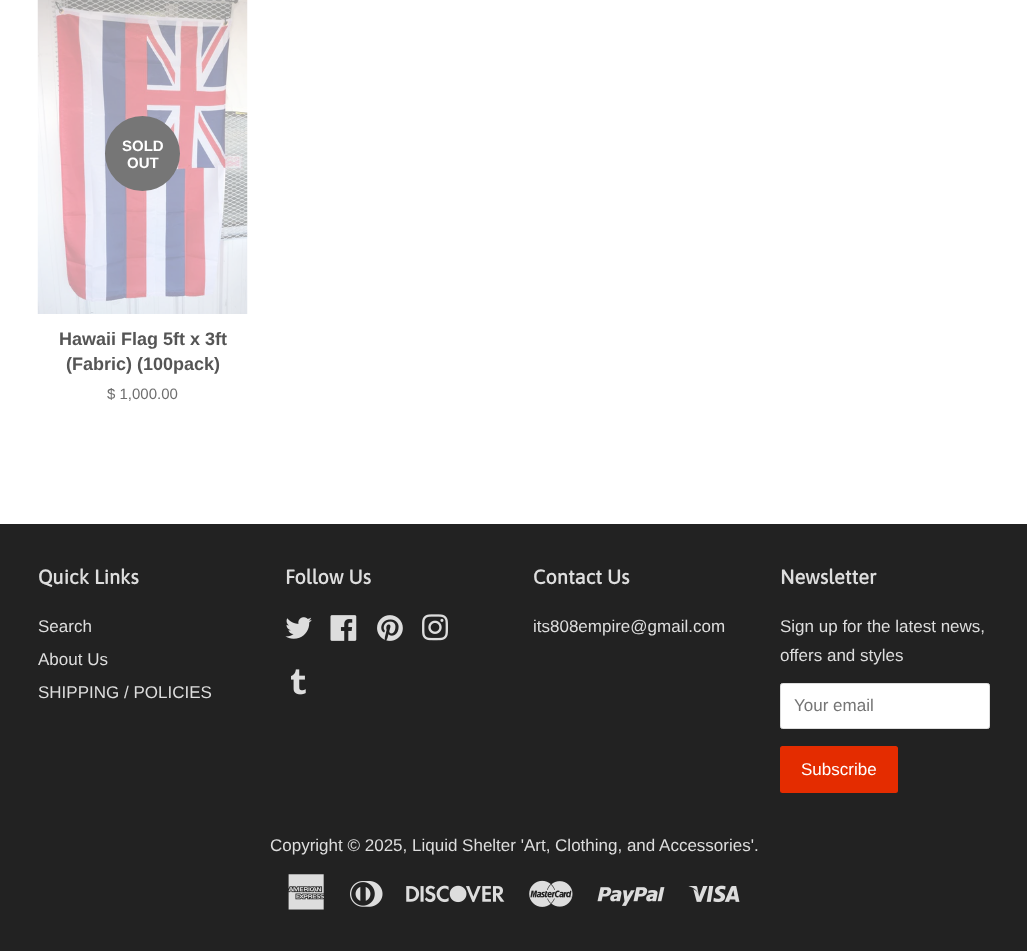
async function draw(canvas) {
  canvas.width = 1027
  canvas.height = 951
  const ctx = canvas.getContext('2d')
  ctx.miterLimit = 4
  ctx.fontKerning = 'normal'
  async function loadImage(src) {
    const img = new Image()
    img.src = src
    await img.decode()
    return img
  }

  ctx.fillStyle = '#fff'
  ctx.fillRect(0, 0, 1027, 951)
  ctx.drawImage(await loadImage('image0.png'), 37, 0, 211, 314)
  ctx.fillStyle = '#767676'
  ctx.beginPath()
  ctx.arc(142.5, 153.5, 37.5, 0, 2 * Math.PI)
  ctx.fill()
  ctx.font = 'bold 15px Liberation Sans'
  ctx.fillStyle = '#fff'
  ctx.fillText('SOLD', 122, 151)
  ctx.fillText('OUT', 127, 168)
  ctx.font = 'bold 18px Liberation Sans'
  ctx.fillStyle = '#555'
  ctx.fillText('Hawaii Flag 5ft x 3ft', 59, 345)
  ctx.fillText('(Fabric) (100pack)', 66, 370)
  ctx.font = '15px Liberation Sans'
  ctx.fillStyle = '#6e6e6e'
  ctx.fillText('$ 1,000.00', 107, 399)
  ctx.fillStyle = '#222'
  ctx.fillRect(0, 524, 1027, 427)
  ctx.font = 'bold 20px Asap'
  ctx.fillStyle = '#ddd'
  ctx.fillText('Quick Links', 38, 584)
  ctx.font = '17px Liberation Sans'
  ctx.fillText('Search', 38, 632)
  ctx.fillText('About Us', 38, 665)
  ctx.fillText('SHIPPING / POLICIES', 38, 698)
  ctx.font = 'bold 20px Asap'
  ctx.fillText('Follow Us', 285, 584)
  ctx.drawImage(await loadImage('image1.png'), 285, 617, 27, 22)
  ctx.drawImage(await loadImage('image2.png'), 330, 615, 27, 26)
  ctx.drawImage(await loadImage('image3.png'), 377, 615, 26, 26)
  ctx.drawImage(await loadImage('image4.png'), 422, 614, 26, 27)
  ctx.drawImage(await loadImage('image5.png'), 291, 669, 15, 26)
  ctx.fillText('Contact Us', 533, 584)
  ctx.font = '17px Liberation Sans'
  ctx.fillText('its808empire@gmail.com', 533, 632)
  ctx.font = 'bold 20px Asap'
  ctx.fillText('Newsletter', 780, 584)
  ctx.font = '17px Liberation Sans'
  ctx.fillText('Sign up for the latest news,', 780, 632)
  ctx.fillText('offers and styles', 780, 661)
  ctx.fillStyle = '#fff'
  ctx.beginPath()
  ctx.roundRect(780.5, 683.5, 209, 45, 2)
  ctx.fill()
  ctx.strokeStyle = '#ddd'
  ctx.stroke()
  ctx.fillStyle = '#757575'
  ctx.fillText('Your email', 794, 711)
  ctx.fillStyle = '#e42c00'
  ctx.beginPath()
  ctx.roundRect(780, 746, 118, 47, 2.5)
  ctx.fill()
  ctx.fillStyle = '#fff'
  ctx.fillText('Subscribe', 801, 775)
  ctx.fillStyle = '#ddd'
  ctx.fillText('Copyright © 2025, Liquid Shelter \'Art, Clothing, and Accessories\'.', 270, 851)
  ctx.drawImage(await loadImage('image6.png'), 288, 874, 36, 36)
  ctx.drawImage(await loadImage('image7.png'), 350, 881, 33, 26)
  ctx.drawImage(await loadImage('image8.png'), 406, 885, 99, 18)
  ctx.drawImage(await loadImage('image9.png'), 529, 880, 44, 27)
  ctx.drawImage(await loadImage('image10.png'), 597, 887, 68, 19)
  ctx.drawImage(await loadImage('image11.png'), 688, 885, 52, 18)
}

draw(document.querySelector('canvas'))
